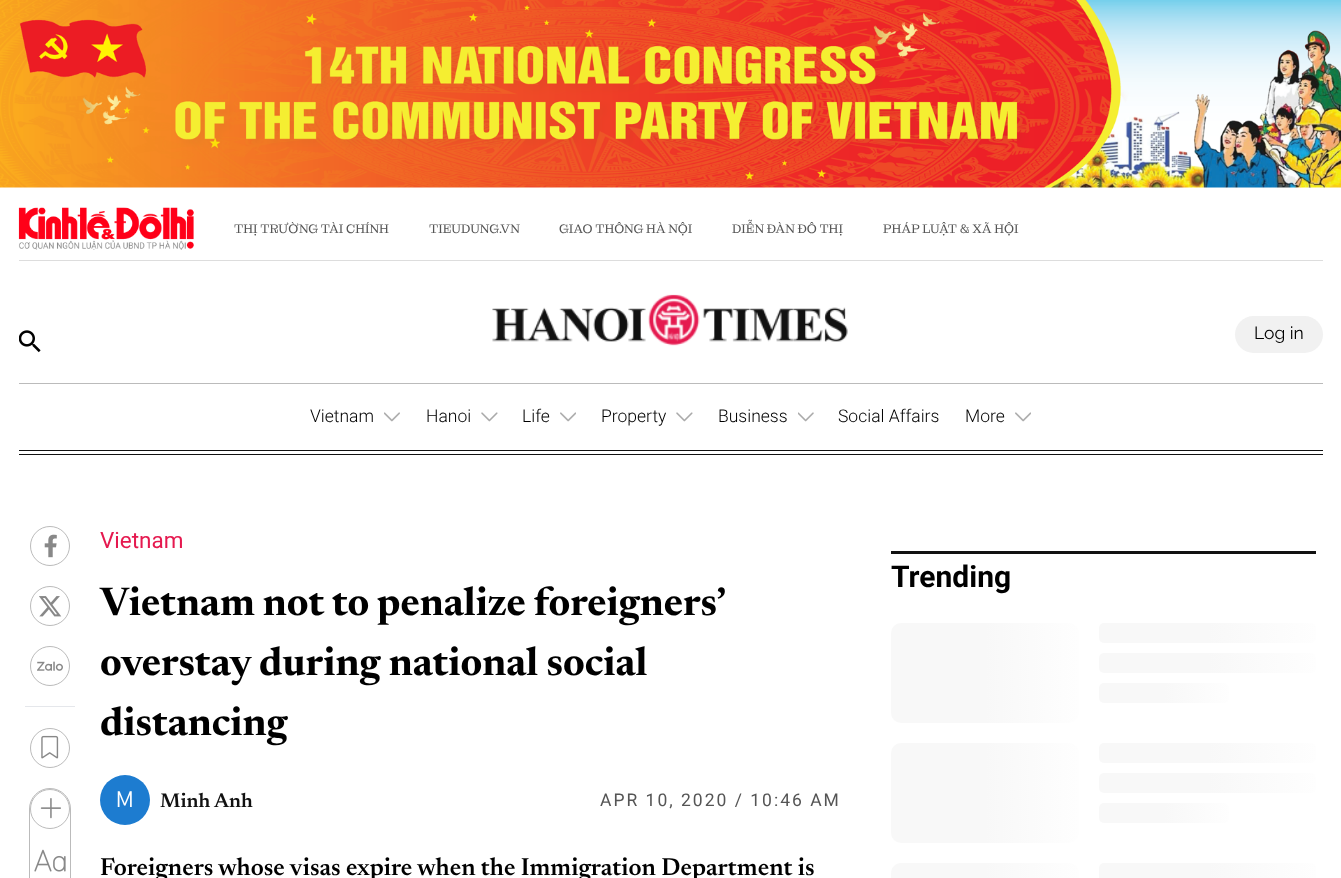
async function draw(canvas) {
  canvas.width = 1341
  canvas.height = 878
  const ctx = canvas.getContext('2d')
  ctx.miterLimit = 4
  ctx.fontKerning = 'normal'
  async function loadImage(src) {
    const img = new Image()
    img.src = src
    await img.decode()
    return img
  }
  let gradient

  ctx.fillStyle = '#fff'
  ctx.fillRect(0, 0, 1341, 878)
  ctx.drawImage(await loadImage('image0.png'), 0, 0, 1341, 188)
  ctx.fillStyle = '#ddd'
  ctx.fillRect(19, 260, 1304, 1)
  ctx.drawImage(await loadImage('image1.png'), 18, 207, 176, 43)
  ctx.font = '12.5px Montagu Slab'
  ctx.fillStyle = '#555'
  ctx.fillText('THỊ TRƯỜNG TÀI CHÍNH', 234, 233)
  ctx.fillText('TIEUDUNG.VN', 429, 233)
  ctx.fillText('GIAO THÔNG HÀ NỘI', 559, 233)
  ctx.fillText('DIỄN ĐÀN ĐÔ THỊ', 732, 233)
  ctx.fillText('PHÁP LUẬT & XÃ HỘI', 883, 233)
  ctx.drawImage(await loadImage('image2.png'), 19, 330, 22, 23)
  ctx.drawImage(await loadImage('image3.png'), 492, 294, 356, 52)
  ctx.fillStyle = '#f1f1f1'
  ctx.beginPath()
  ctx.roundRect(1235, 316, 88, 37, 18.5)
  ctx.fill()
  ctx.font = '100 17.5px Raleway'
  ctx.fillStyle = '#000'
  ctx.fillText('Log in', 1254, 339)
  ctx.fillStyle = '#bbb'
  ctx.fillRect(19, 383, 1304, 1)
  ctx.fillStyle = '#111'
  ctx.fillRect(19, 450, 1304, 1)
  ctx.font = '300 17.5px Roboto'
  ctx.fillStyle = '#000'
  ctx.fillText('Vietnam', 310, 422)
  ctx.drawImage(await loadImage('image4.png'), 384, 412, 16, 10)
  ctx.fillText('Hanoi', 426, 422)
  ctx.drawImage(await loadImage('image5.png'), 481, 412, 17, 10)
  ctx.fillText('Life', 522, 422)
  ctx.drawImage(await loadImage('image6.png'), 560, 412, 16, 10)
  ctx.fillText('Property', 601, 422)
  ctx.drawImage(await loadImage('image5.png'), 676, 412, 17, 10)
  ctx.fillText('Business', 718, 422)
  ctx.drawImage(await loadImage('image7.png'), 798, 412, 16, 10)
  ctx.fillText('Social Affairs', 838, 422)
  ctx.fillText('More', 965, 422)
  ctx.drawImage(await loadImage('image6.png'), 1015, 412, 16, 10)
  ctx.fillStyle = '#111'
  ctx.fillRect(19, 454, 1304, 1)
  ctx.beginPath()
  ctx.arc(50, 546, 19.5, 0, 2 * Math.PI)
  ctx.strokeStyle = '#bbb'
  ctx.stroke()
  ctx.drawImage(await loadImage('image8.png'), 44, 534, 13, 24)
  ctx.beginPath()
  ctx.arc(50, 606, 19.5, 0, 2 * Math.PI)
  ctx.stroke()
  ctx.drawImage(await loadImage('image9.png'), 39, 596, 23, 21)
  ctx.beginPath()
  ctx.arc(50, 666, 19.5, 0, 2 * Math.PI)
  ctx.stroke()
  ctx.drawImage(await loadImage('image10.png'), 37, 661, 26, 10)
  ctx.fillStyle = '#e5e7eb'
  ctx.fillRect(25, 706, 50, 1)
  ctx.beginPath()
  ctx.arc(50, 748, 19.5, 0, 2 * Math.PI)
  ctx.stroke()
  ctx.drawImage(await loadImage('image11.png'), 41, 735, 18, 24)
  ctx.beginPath()
  ctx.roundRect(29.5, 788.5, 41, 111, 20.5)
  ctx.stroke()
  ctx.beginPath()
  ctx.arc(50, 809, 19.5, 0, 2 * Math.PI)
  ctx.stroke()
  ctx.drawImage(await loadImage('image12.png'), 40, 798, 21, 21)
  ctx.drawImage(await loadImage('image13.png'), 34, 849, 32, 23)
  ctx.font = '22.5px Roboto'
  ctx.fillStyle = '#e5194f'
  ctx.fillText('Vietnam', 100, 548)
  ctx.wordSpacing = '-0.5px'
  ctx.font = 'bold 40px Newsreader'
  ctx.fillStyle = '#000'
  ctx.fillText('Vietnam not to penalize foreigners’', 100, 615)
  ctx.wordSpacing = '0px'
  ctx.fillText('overstay during national social', 100, 675)
  ctx.fillText('distancing', 100, 735)
  ctx.fillStyle = '#1d7cd0'
  ctx.beginPath()
  ctx.arc(125, 800, 25, 0, 2 * Math.PI)
  ctx.fill()
  ctx.font = '22.5px Chakra Petch'
  ctx.fillStyle = '#fff'
  ctx.fillText('M', 116, 807)
  ctx.font = '600 20px Newsreader'
  ctx.fillStyle = '#111'
  ctx.fillText('Minh Anh', 160, 807)
  ctx.letterSpacing = '2px'
  ctx.font = '17.5px Roboto'
  ctx.fillStyle = '#555'
  ctx.fillText('APR 10, 2020 / 10:46 AM', 600, 806)
  ctx.letterSpacing = '0px'
  ctx.font = '600 25px "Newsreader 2"'
  ctx.fillStyle = '#000'
  ctx.fillText('Foreigners whose visas expire when the Immigration Department is', 100, 875)
  ctx.fillStyle = '#111'
  ctx.fillRect(891, 551, 425, 3)
  ctx.font = 'bold 30px Roboto'
  ctx.fillStyle = '#000'
  ctx.fillText('Trending', 891, 587)
  gradient = ctx.createLinearGradient(891, 673, 1266, 673)
  gradient.addColorStop(0.25, '#f8f8f8')
  gradient.addColorStop(0.5, '#fefefe')
  gradient.addColorStop(0.75, '#f5f5f5')
  ctx.fillStyle = gradient
  ctx.beginPath()
  ctx.roundRect(891, 623, 188, 100, 10)
  ctx.fill()
  gradient = ctx.createLinearGradient(1099, 633, 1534, 633)
  gradient.addColorStop(0.25, '#f8f8f8')
  gradient.addColorStop(0.5, '#fefefe')
  gradient.addColorStop(0.75, '#f5f5f5')
  ctx.fillStyle = gradient
  ctx.beginPath()
  ctx.roundRect(1099, 623, 217, 20, 5)
  ctx.fill()
  gradient = ctx.createLinearGradient(1099, 663, 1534, 663)
  gradient.addColorStop(0.25, '#f8f8f8')
  gradient.addColorStop(0.5, '#fefefe')
  gradient.addColorStop(0.75, '#f5f5f5')
  ctx.fillStyle = gradient
  ctx.beginPath()
  ctx.roundRect(1099, 653, 217, 20, 5)
  ctx.fill()
  gradient = ctx.createLinearGradient(1099, 693, 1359, 693)
  gradient.addColorStop(0.25, '#f8f8f8')
  gradient.addColorStop(0.5, '#fefefe')
  gradient.addColorStop(0.75, '#f5f5f5')
  ctx.fillStyle = gradient
  ctx.beginPath()
  ctx.roundRect(1099, 683, 130, 20, 5)
  ctx.fill()
  gradient = ctx.createLinearGradient(891, 793, 1266, 793)
  gradient.addColorStop(0.25, '#f8f8f8')
  gradient.addColorStop(0.5, '#fefefe')
  gradient.addColorStop(0.75, '#f5f5f5')
  ctx.fillStyle = gradient
  ctx.beginPath()
  ctx.roundRect(891, 743, 188, 100, 10)
  ctx.fill()
  gradient = ctx.createLinearGradient(1099, 753, 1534, 753)
  gradient.addColorStop(0.25, '#f8f8f8')
  gradient.addColorStop(0.5, '#fefefe')
  gradient.addColorStop(0.75, '#f5f5f5')
  ctx.fillStyle = gradient
  ctx.beginPath()
  ctx.roundRect(1099, 743, 217, 20, 5)
  ctx.fill()
  gradient = ctx.createLinearGradient(1099, 783, 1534, 783)
  gradient.addColorStop(0.25, '#f8f8f8')
  gradient.addColorStop(0.5, '#fefefe')
  gradient.addColorStop(0.75, '#f5f5f5')
  ctx.fillStyle = gradient
  ctx.beginPath()
  ctx.roundRect(1099, 773, 217, 20, 5)
  ctx.fill()
  gradient = ctx.createLinearGradient(1099, 813, 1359, 813)
  gradient.addColorStop(0.25, '#f8f8f8')
  gradient.addColorStop(0.5, '#fefefe')
  gradient.addColorStop(0.75, '#f5f5f5')
  ctx.fillStyle = gradient
  ctx.beginPath()
  ctx.roundRect(1099, 803, 130, 20, 5)
  ctx.fill()
  gradient = ctx.createLinearGradient(891, 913, 1266, 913)
  gradient.addColorStop(0.25, '#f8f8f8')
  gradient.addColorStop(0.5, '#fefefe')
  gradient.addColorStop(0.75, '#f5f5f5')
  ctx.fillStyle = gradient
  ctx.beginPath()
  ctx.moveTo(901, 863)
  ctx.lineTo(1069, 863)
  ctx.bezierCurveTo(1074.5, 863, 1079, 867.5, 1079, 873)
  ctx.lineTo(1079, 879)
  ctx.lineTo(891, 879)
  ctx.lineTo(891, 873)
  ctx.bezierCurveTo(891, 867.5, 895.5, 863, 901, 863)
  ctx.closePath()
  ctx.fill()
  gradient = ctx.createLinearGradient(1099, 873, 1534, 873)
  gradient.addColorStop(0.25, '#f8f8f8')
  gradient.addColorStop(0.5, '#fefefe')
  gradient.addColorStop(0.75, '#f5f5f5')
  ctx.fillStyle = gradient
  ctx.beginPath()
  ctx.roundRect(1099, 863, 217, 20, 5)
  ctx.fill()
}

draw(document.querySelector('canvas'))
